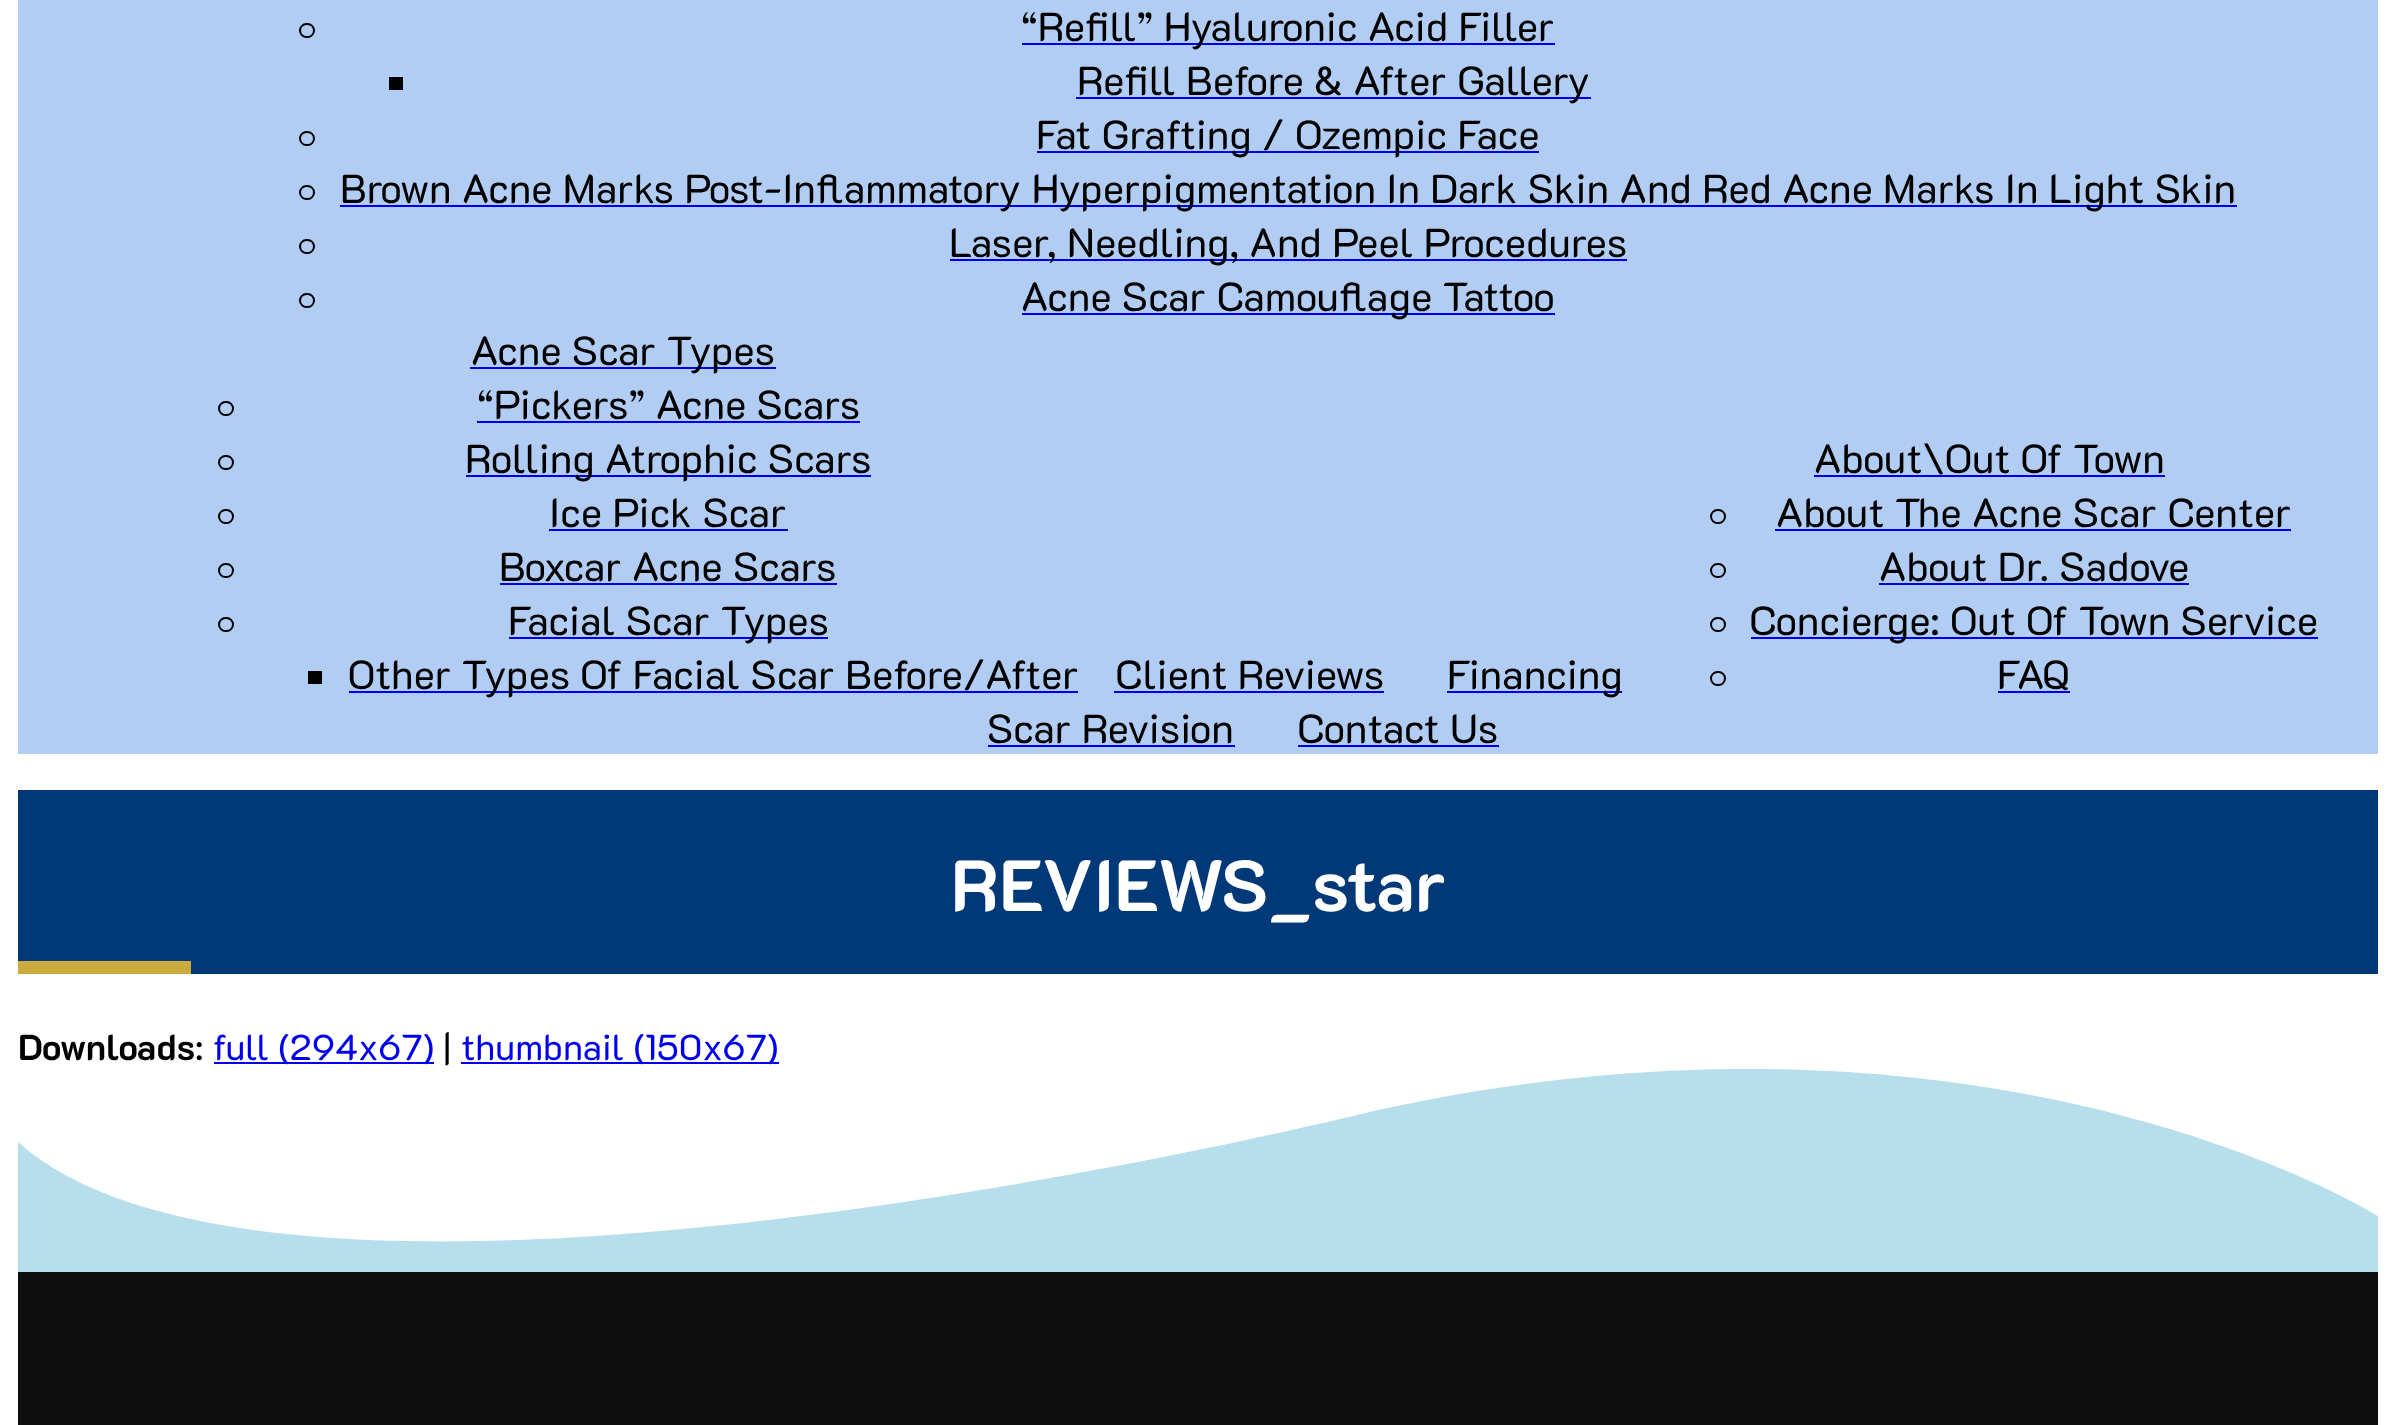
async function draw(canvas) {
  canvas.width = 2396
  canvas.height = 1425
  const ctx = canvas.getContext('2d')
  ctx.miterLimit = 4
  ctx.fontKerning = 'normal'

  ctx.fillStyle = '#fff'
  ctx.fillRect(0, 0, 2396, 1425)
  ctx.fillStyle = '#b2cdf4'
  ctx.fillRect(18, 0, 2360, 754)
  ctx.beginPath()
  ctx.roundRect(300, 24, 14, 13, 6.5)
  ctx.strokeStyle = '#000'
  ctx.lineWidth = 2
  ctx.stroke()
  ctx.fillStyle = '#00e'
  ctx.fillRect(1022, 43, 533, 2)
  ctx.font = '40.5px "K2D"'
  ctx.fillStyle = '#000'
  ctx.fillText('“Refill” Hyaluronic Acid Filler', 1021, 41)
  ctx.fillRect(389, 77, 14, 13)
  ctx.fillStyle = '#00e'
  ctx.fillRect(1076, 97, 515, 2)
  ctx.fillStyle = '#000'
  ctx.fillText('Refill Before & After Gallery', 1077, 95)
  ctx.beginPath()
  ctx.roundRect(300, 132, 14, 13, 6.5)
  ctx.stroke()
  ctx.fillStyle = '#00e'
  ctx.fillRect(1037, 151, 502, 2)
  ctx.fillStyle = '#000'
  ctx.fillText('Fat Grafting / Ozempic Face', 1036, 149)
  ctx.beginPath()
  ctx.roundRect(300, 186, 14, 13, 6.5)
  ctx.stroke()
  ctx.fillStyle = '#00e'
  ctx.fillRect(340, 205, 1897, 2)
  ctx.fillStyle = '#000'
  ctx.fillText('Brown Acne Marks Post-Inflammatory Hyperpigmentation In Dark Skin And Red Acne Marks In Light Skin', 340, 203)
  ctx.beginPath()
  ctx.roundRect(300, 240, 14, 13, 6.5)
  ctx.stroke()
  ctx.fillStyle = '#00e'
  ctx.fillRect(950, 259, 677, 2)
  ctx.fillStyle = '#000'
  ctx.fillText('Laser, Needling, And Peel Procedures', 949, 257)
  ctx.beginPath()
  ctx.roundRect(300, 294, 14, 13, 6.5)
  ctx.stroke()
  ctx.fillStyle = '#00e'
  ctx.fillRect(1022, 313, 533, 2)
  ctx.fillStyle = '#000'
  ctx.fillText('Acne Scar Camouflage Tattoo', 1021, 311)
  ctx.fillStyle = '#00e'
  ctx.fillRect(470, 367, 306, 2)
  ctx.fillStyle = '#000'
  ctx.fillText('Acne Scar Types', 471, 365)
  ctx.beginPath()
  ctx.roundRect(219, 402, 14, 13, 6.5)
  ctx.stroke()
  ctx.fillText('“Pickers” Acne Scars', 477, 419)
  ctx.fillStyle = '#00e'
  ctx.fillRect(477, 421, 383, 2)
  ctx.beginPath()
  ctx.roundRect(219, 456, 14, 13, 6.5)
  ctx.stroke()
  ctx.fillRect(466, 475, 405, 2)
  ctx.fillStyle = '#000'
  ctx.fillText('Rolling Atrophic Scars', 465, 473)
  ctx.beginPath()
  ctx.roundRect(219, 510, 14, 13, 6.5)
  ctx.stroke()
  ctx.fillText('Ice Pick Scar', 549, 527)
  ctx.fillStyle = '#00e'
  ctx.fillRect(549, 529, 239, 2)
  ctx.beginPath()
  ctx.roundRect(219, 564, 14, 13, 6.5)
  ctx.stroke()
  ctx.fillStyle = '#000'
  ctx.fillText('Boxcar Acne Scars', 499, 581)
  ctx.fillStyle = '#00e'
  ctx.fillRect(500, 583, 337, 2)
  ctx.beginPath()
  ctx.roundRect(219, 618, 14, 13, 6.5)
  ctx.stroke()
  ctx.fillRect(509, 637, 319, 2)
  ctx.fillStyle = '#000'
  ctx.fillText('Facial Scar Types', 508, 635)
  ctx.fillRect(308, 671, 14, 13)
  ctx.fillStyle = '#00e'
  ctx.fillRect(349, 691, 729, 2)
  ctx.fillStyle = '#000'
  ctx.fillText('Other Types Of Facial Scar Before/After', 348, 689)
  ctx.fillText('Client Reviews', 1115, 689)
  ctx.fillStyle = '#00e'
  ctx.fillRect(1114, 691, 270, 2)
  ctx.fillRect(1447, 691, 175, 2)
  ctx.fillStyle = '#000'
  ctx.fillText('Financing', 1447, 689)
  ctx.fillText('About\\Out Of Town', 1814, 473)
  ctx.fillStyle = '#00e'
  ctx.fillRect(1814, 475, 351, 2)
  ctx.beginPath()
  ctx.roundRect(1711, 510, 14, 13, 6.5)
  ctx.stroke()
  ctx.fillStyle = '#000'
  ctx.fillText('About The Acne Scar Center', 1776, 527)
  ctx.fillStyle = '#00e'
  ctx.fillRect(1775, 529, 516, 2)
  ctx.beginPath()
  ctx.roundRect(1711, 564, 14, 13, 6.5)
  ctx.stroke()
  ctx.fillStyle = '#000'
  ctx.fillText('About Dr. Sadove', 1879, 581)
  ctx.fillStyle = '#00e'
  ctx.fillRect(1879, 583, 310, 2)
  ctx.beginPath()
  ctx.roundRect(1711, 618, 14, 13, 6.5)
  ctx.stroke()
  ctx.fillRect(1751, 637, 567, 2)
  ctx.fillStyle = '#000'
  ctx.fillText('Concierge: Out Of Town Service', 1749, 635)
  ctx.beginPath()
  ctx.roundRect(1711, 672, 14, 13, 6.5)
  ctx.stroke()
  ctx.fillText('FAQ', 1997, 689)
  ctx.fillStyle = '#00e'
  ctx.fillRect(1998, 691, 72, 2)
  ctx.fillStyle = '#000'
  ctx.fillText('Scar Revision', 987, 743)
  ctx.fillStyle = '#00e'
  ctx.fillRect(988, 745, 247, 2)
  ctx.fillStyle = '#000'
  ctx.fillText('Contact Us', 1297, 743)
  ctx.fillStyle = '#00e'
  ctx.fillRect(1298, 745, 201, 2)
  ctx.fillStyle = '#003878'
  ctx.fillRect(18, 790, 2360, 184)
  ctx.font = 'bold 72px "K2D"'
  ctx.fillStyle = '#fff'
  ctx.fillText('REVIEWS_star', 951, 911)
  ctx.fillStyle = '#caab40'
  ctx.fillRect(18, 961, 173, 13)
  ctx.font = 'bold 36px "K2D"'
  ctx.fillStyle = '#000'
  ctx.fillText('Downloads', 18, 1060)
  ctx.font = '36px "K2D"'
  ctx.fillText(':', 195, 1060)
  ctx.fillStyle = '#00e'
  ctx.fillRect(214, 1062, 220, 2)
  ctx.fillText('full (294x67)', 213, 1060)
  ctx.fillStyle = '#000'
  ctx.fillText('|', 443, 1060)
  ctx.fillStyle = '#00e'
  ctx.fillRect(461, 1062, 318, 2)
  ctx.fillText('thumbnail (150x67)', 461, 1060)
  ctx.save()
  ctx.beginPath()
  ctx.rect(18, 1069, 2360, 205)
  ctx.clip()
  ctx.fillStyle = '#b7dfeb'
  ctx.beginPath()
  ctx.moveTo(2378, 1216)
  ctx.bezierCurveTo(2378, 1216, 1996, 975, 1378, 1110)
  ctx.bezierCurveTo(1378, 1110, 287, 1383, 18, 1142)
  ctx.lineTo(18, 1272)
  ctx.lineTo(2378, 1272)
  ctx.closePath()
  ctx.fill()
  ctx.restore()
  ctx.fillStyle = '#0e0e0e'
  ctx.fillRect(18, 1272, 2360, 153)
}

draw(document.querySelector('canvas'))
